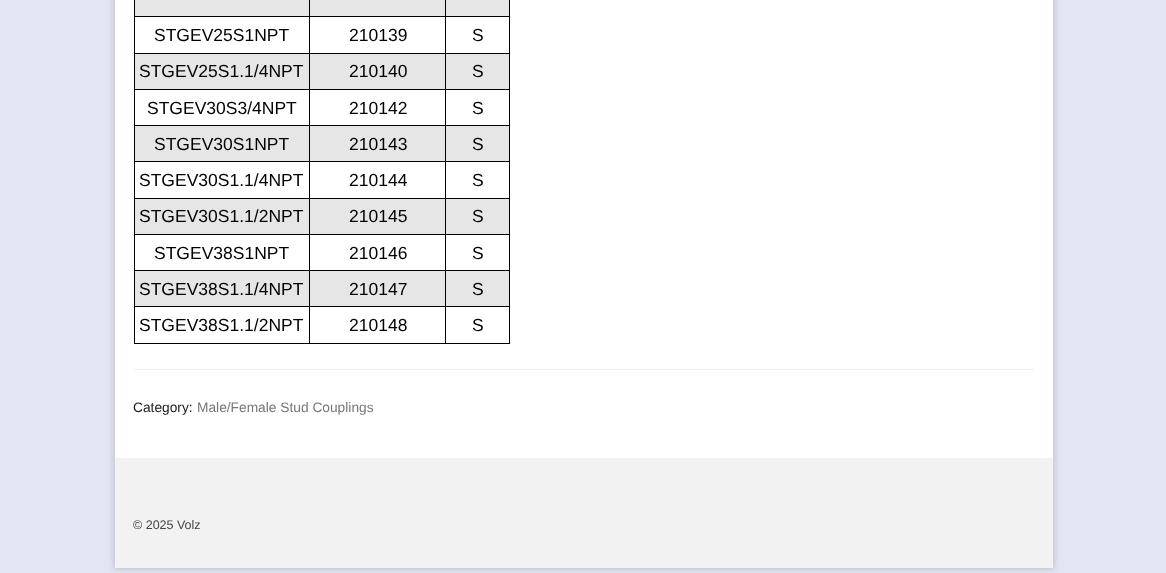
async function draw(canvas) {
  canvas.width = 1166
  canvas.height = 573
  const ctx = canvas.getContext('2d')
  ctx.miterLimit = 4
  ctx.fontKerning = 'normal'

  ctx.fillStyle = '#e2e5f2'
  ctx.fillRect(0, 0, 1166, 573)
  ctx.fillStyle = '#00000029'
  ctx.filter = 'blur(3px)'
  ctx.beginPath()
  ctx.rect(114, -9, 940, 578)
  ctx.fill()
  ctx.filter = 'none'
  ctx.fillStyle = '#fff'
  ctx.fillRect(115, 0, 938, 458)
  ctx.fillStyle = '#e6e6e6'
  ctx.fillRect(135, 0, 374, 16)
  ctx.fillStyle = '#000'
  ctx.fillRect(445, 16, 65, 1)
  ctx.fillRect(445, 53, 65, 1)
  ctx.fillStyle = '#e6e6e6'
  ctx.fillRect(135, 54, 374, 35)
  ctx.fillStyle = '#000'
  ctx.fillRect(445, 89, 65, 1)
  ctx.fillRect(445, 125, 65, 1)
  ctx.fillStyle = '#e6e6e6'
  ctx.fillRect(135, 126, 374, 35)
  ctx.fillStyle = '#000'
  ctx.fillRect(445, 161, 65, 1)
  ctx.fillRect(445, 198, 65, 1)
  ctx.fillStyle = '#e6e6e6'
  ctx.fillRect(135, 199, 374, 35)
  ctx.fillStyle = '#000'
  ctx.fillRect(445, 234, 65, 1)
  ctx.fillRect(445, 270, 65, 1)
  ctx.fillStyle = '#e6e6e6'
  ctx.fillRect(135, 271, 374, 35)
  ctx.fillStyle = '#000'
  ctx.fillRect(445, 306, 65, 1)
  ctx.fillRect(509, 306, 1, 38)
  ctx.fillRect(445, 343, 65, 1)
  ctx.fillRect(445, 306, 1, 38)
  ctx.fillRect(309, 306, 137, 1)
  ctx.fillRect(445, 270, 1, 38)
  ctx.fillRect(309, 270, 137, 1)
  ctx.fillRect(445, 234, 1, 37)
  ctx.fillRect(309, 234, 137, 1)
  ctx.fillRect(445, 198, 1, 37)
  ctx.fillRect(309, 198, 137, 1)
  ctx.fillRect(445, 161, 1, 38)
  ctx.fillRect(309, 161, 137, 1)
  ctx.fillRect(445, 125, 1, 38)
  ctx.fillRect(309, 125, 137, 1)
  ctx.fillRect(445, 89, 1, 37)
  ctx.fillRect(309, 89, 137, 1)
  ctx.fillRect(445, 53, 1, 37)
  ctx.fillRect(309, 53, 137, 1)
  ctx.fillRect(445, 16, 1, 38)
  ctx.fillRect(309, 16, 137, 1)
  ctx.fillRect(309, 343, 137, 1)
  ctx.fillRect(309, 306, 1, 38)
  ctx.fillRect(134, 306, 176, 1)
  ctx.fillRect(309, 270, 1, 38)
  ctx.fillRect(134, 270, 176, 1)
  ctx.fillRect(309, 234, 1, 37)
  ctx.fillRect(134, 234, 176, 1)
  ctx.fillRect(309, 198, 1, 37)
  ctx.fillRect(134, 198, 176, 1)
  ctx.fillRect(309, 161, 1, 38)
  ctx.fillRect(134, 161, 176, 1)
  ctx.fillRect(309, 125, 1, 38)
  ctx.fillRect(134, 125, 176, 1)
  ctx.fillRect(309, 89, 1, 37)
  ctx.fillRect(134, 89, 176, 1)
  ctx.fillRect(309, 53, 1, 37)
  ctx.fillRect(134, 53, 176, 1)
  ctx.fillRect(309, 16, 1, 38)
  ctx.fillRect(134, 16, 176, 1)
  ctx.fillRect(309, 0, 1, 18)
  ctx.fillRect(445, 0, 1, 18)
  ctx.fillRect(134, 343, 176, 1)
  ctx.fillRect(134, 306, 1, 38)
  ctx.fillRect(134, 270, 1, 38)
  ctx.fillRect(134, 234, 1, 37)
  ctx.fillRect(134, 198, 1, 37)
  ctx.fillRect(134, 161, 1, 38)
  ctx.fillRect(134, 125, 1, 38)
  ctx.fillRect(134, 89, 1, 37)
  ctx.fillRect(134, 53, 1, 37)
  ctx.fillRect(134, 0, 1, 54)
  ctx.font = '17.5px Liberation Sans'
  ctx.fillText('STGEV25S1NPT', 154, 41)
  ctx.fillText('210139', 349, 41)
  ctx.fillRect(509, 270, 1, 38)
  ctx.fillRect(509, 234, 1, 37)
  ctx.fillRect(509, 198, 1, 37)
  ctx.fillRect(509, 161, 1, 38)
  ctx.fillRect(509, 125, 1, 38)
  ctx.fillRect(509, 89, 1, 37)
  ctx.fillRect(509, 53, 1, 37)
  ctx.fillRect(509, 0, 1, 54)
  ctx.fillText('S', 472, 41)
  ctx.fillText('STGEV25S1.1/4NPT', 139, 77)
  ctx.fillText('210140', 349, 77)
  ctx.fillText('S', 472, 77)
  ctx.fillText('STGEV30S3/4NPT', 147, 114)
  ctx.fillText('210142', 349, 114)
  ctx.fillText('S', 472, 114)
  ctx.fillText('STGEV30S1NPT', 154, 150)
  ctx.fillText('210143', 349, 150)
  ctx.fillText('S', 472, 150)
  ctx.fillText('STGEV30S1.1/4NPT', 139, 186)
  ctx.fillText('210144', 349, 186)
  ctx.fillText('S', 472, 186)
  ctx.fillText('STGEV30S1.1/2NPT', 139, 222)
  ctx.fillText('210145', 349, 222)
  ctx.fillText('S', 472, 222)
  ctx.fillText('STGEV38S1NPT', 154, 259)
  ctx.fillText('210146', 349, 259)
  ctx.fillText('S', 472, 259)
  ctx.fillText('STGEV38S1.1/4NPT', 139, 295)
  ctx.fillText('210147', 349, 295)
  ctx.fillText('S', 472, 295)
  ctx.fillText('STGEV38S1.1/2NPT', 139, 331)
  ctx.fillText('210148', 349, 331)
  ctx.fillText('S', 472, 331)
  ctx.fillStyle = '#f2f2f2'
  ctx.fillRect(134, 369, 900, 1)
  ctx.font = '13.75px Liberation Sans'
  ctx.fillStyle = '#1a171b'
  ctx.fillText('Category:', 133, 412)
  ctx.fillStyle = '#777'
  ctx.fillText('Male/Female Stud Couplings', 197, 412)
  ctx.fillStyle = '#f2f2f2'
  ctx.fillRect(115, 458, 938, 110)
  ctx.font = '12.5px Liberation Sans'
  ctx.fillStyle = '#444'
  ctx.fillText('© 2025 Volz', 133, 529)
}

draw(document.querySelector('canvas'))
